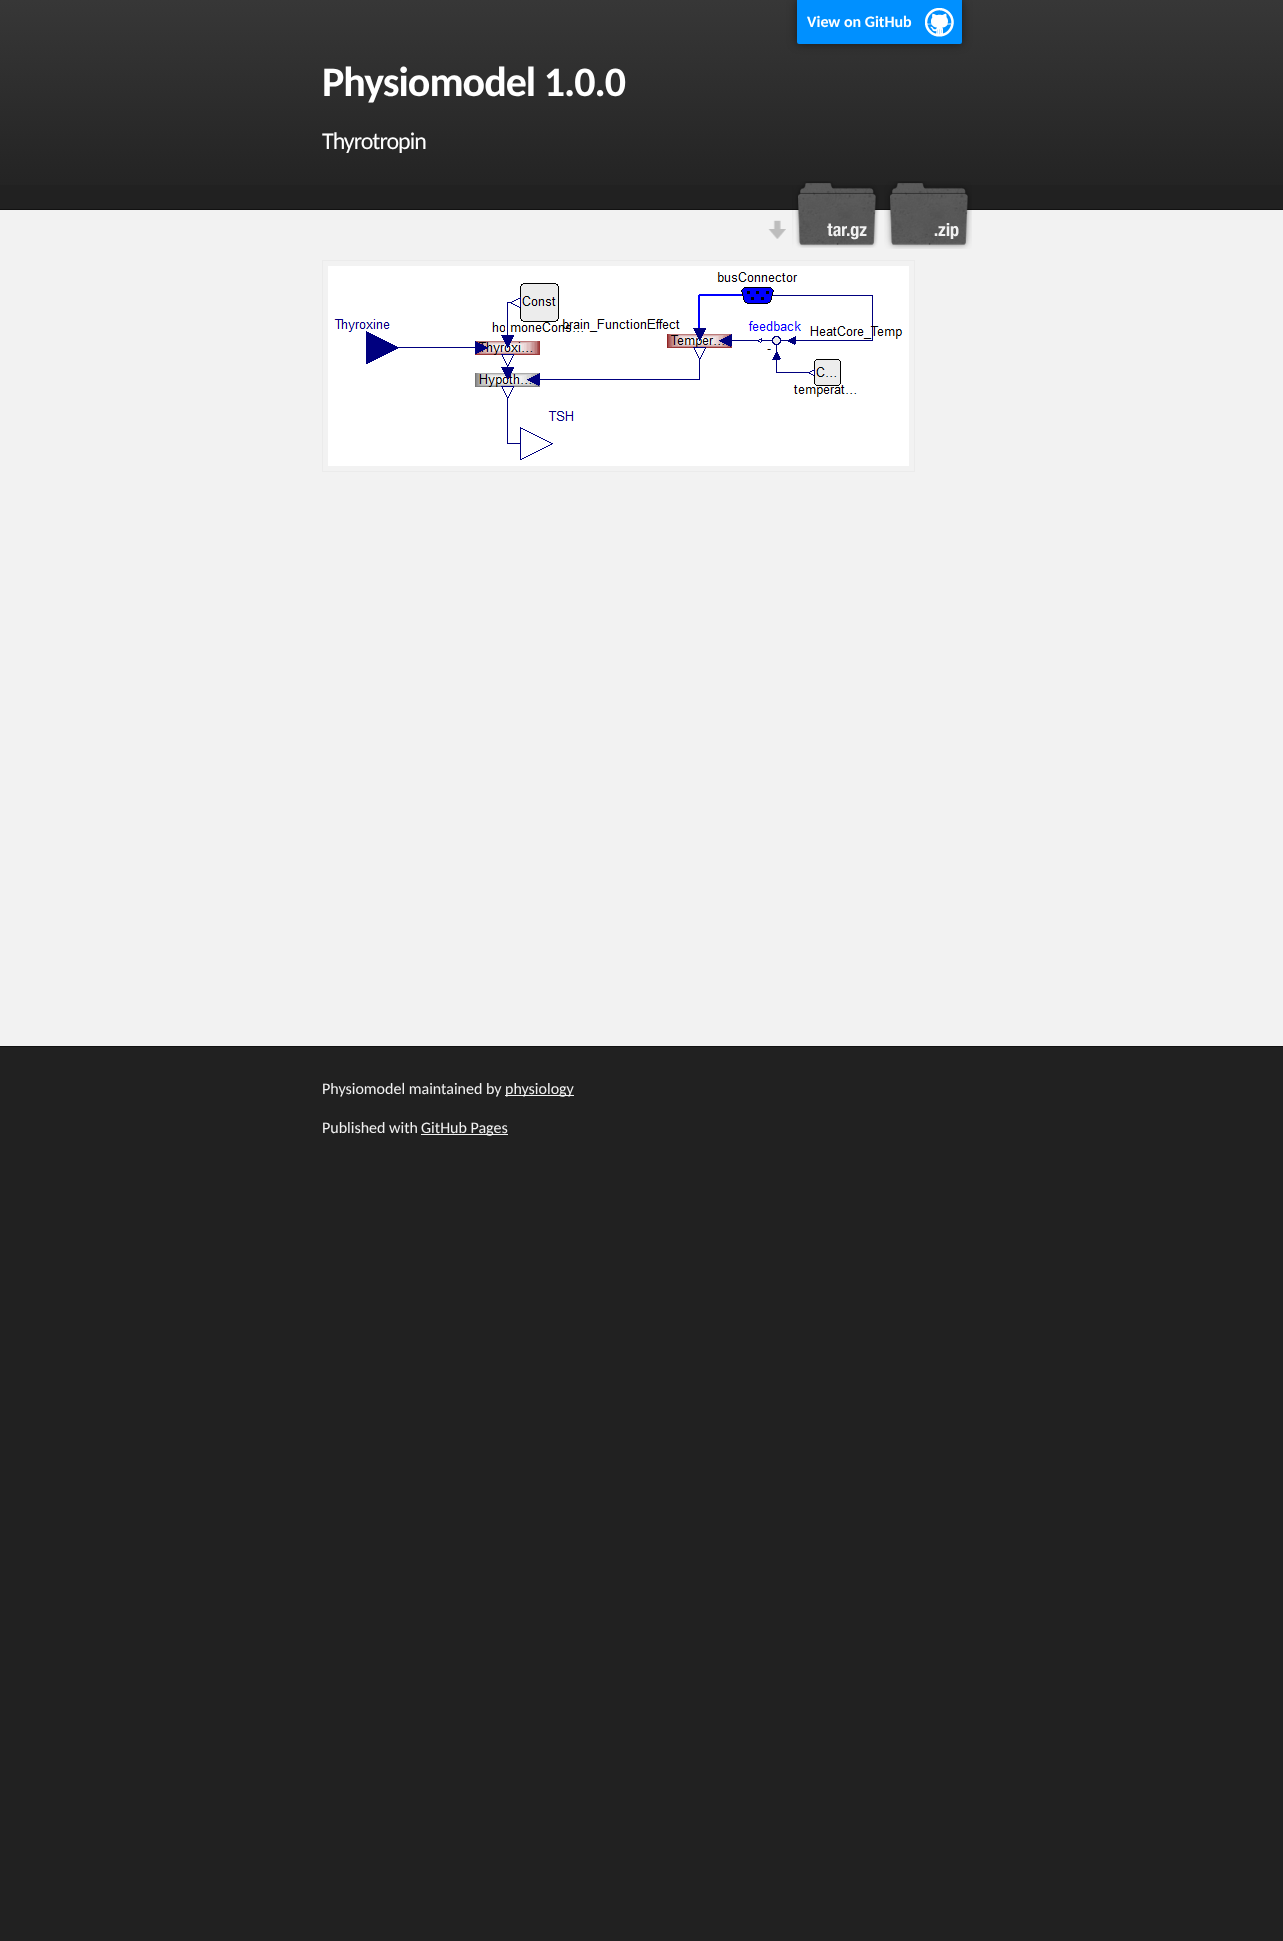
async function draw(canvas) {
  canvas.width = 1283
  canvas.height = 1941
  const ctx = canvas.getContext('2d')
  ctx.miterLimit = 4
  ctx.fontKerning = 'normal'
  async function loadImage(src) {
    const img = new Image()
    img.src = src
    await img.decode()
    return img
  }
  let gradient

  ctx.fillStyle = '#212121'
  ctx.fillRect(0, 0, 1283, 1941)
  gradient = ctx.createLinearGradient(642, 0, 642, 209)
  gradient.addColorStop(0, '#373737')
  gradient.addColorStop(1, '#212121')
  ctx.fillStyle = gradient
  ctx.fillRect(0, 0, 1283, 185)
  ctx.fillStyle = '#00000080'
  ctx.filter = 'blur(5px)'
  ctx.beginPath()
  ctx.roundRect(797, 0, 165, 44, 2)
  ctx.fill()
  ctx.filter = 'none'
  ctx.fillStyle = '#0090ff'
  ctx.beginPath()
  ctx.roundRect(797, 0, 165, 44, [0, 0, 2, 2])
  ctx.fill()
  ctx.drawImage(await loadImage('image0.png'), 925, 8, 29, 29)
  ctx.font = 'bold 16px Carlito'
  ctx.fillStyle = '#fff'
  ctx.fillText('View on GitHub', 807, 27)
  ctx.letterSpacing = '-1px'
  ctx.font = 'bold 42px Carlito'
  ctx.fillText('Physiomodel 1.0.0', 322, 96)
  ctx.font = '24px Carlito'
  ctx.fillText('Thyrotropin', 322, 149)
  ctx.fillStyle = '#f2f2f2'
  ctx.fillRect(0, 210, 1283, 836)
  ctx.drawImage(await loadImage('image1.png'), 768, 220, 18, 19)
  ctx.fillStyle = '#111'
  ctx.fillRect(0, 209, 1283, 1)
  ctx.drawImage(await loadImage('image2.png'), 792, 181, 87, 67)
  ctx.drawImage(await loadImage('image3.png'), 884, 181, 88, 68)
  ctx.fillRect(0, 1046, 1283, 1)
  ctx.strokeStyle = '#ebebeb'
  ctx.strokeRect(322.5, 260.5, 592, 211)
  ctx.drawImage(await loadImage('image4.png'), 328, 266, 581, 200)
  ctx.letterSpacing = '0px'
  ctx.font = '16px Carlito'
  ctx.fillStyle = '#f2f2f2'
  ctx.fillText('Physiomodel maintained by', 322, 1094)
  ctx.fillRect(505, 1095, 69, 1)
  ctx.fillText('physiology', 505, 1094)
  ctx.fillText('Published with', 322, 1133)
  ctx.fillRect(421, 1134, 87, 1)
  ctx.fillText('GitHub Pages', 421, 1133)
}

draw(document.querySelector('canvas'))
